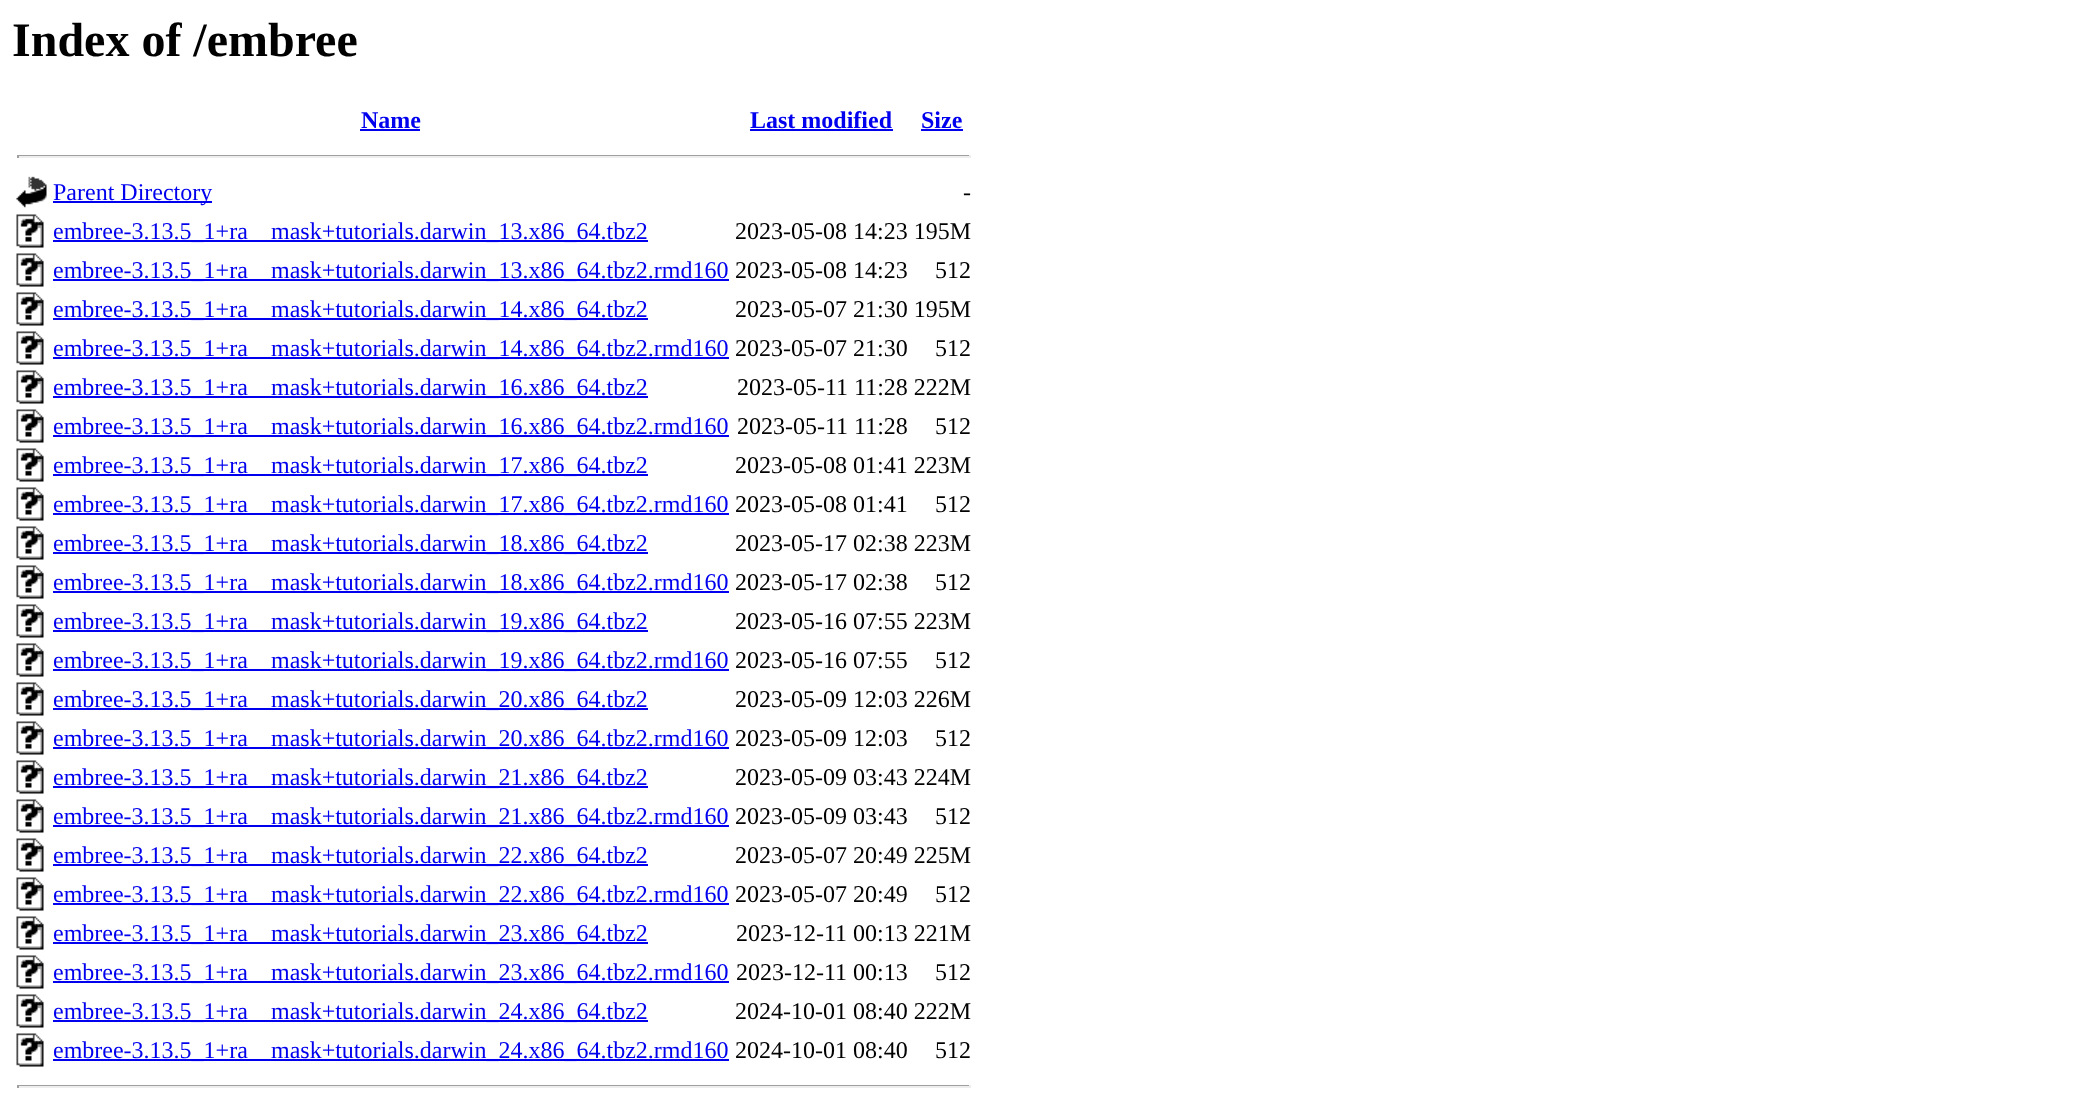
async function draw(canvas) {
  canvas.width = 2099
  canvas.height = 1112
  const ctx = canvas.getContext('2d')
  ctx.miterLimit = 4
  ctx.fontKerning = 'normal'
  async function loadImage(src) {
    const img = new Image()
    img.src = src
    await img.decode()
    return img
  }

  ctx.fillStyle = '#fff'
  ctx.fillRect(0, 0, 2099, 1112)
  ctx.font = 'bold 48px Liberation Serif'
  ctx.fillStyle = '#000'
  ctx.fillText('Index of /embree', 12, 56)
  ctx.font = 'bold 24px Liberation Serif'
  ctx.fillStyle = '#00e'
  ctx.fillText('Name', 361, 128)
  ctx.fillRect(360, 129, 60, 2)
  ctx.fillText('Last modified', 750, 128)
  ctx.fillRect(750, 129, 143, 2)
  ctx.fillText('Size', 921, 128)
  ctx.fillRect(921, 129, 42, 2)
  ctx.fillStyle = '#9f9f9f'
  ctx.fillRect(17, 155, 954, 1)
  ctx.fillStyle = '#eee'
  ctx.fillRect(969, 155, 2, 3)
  ctx.fillRect(17, 156, 954, 2)
  ctx.fillStyle = '#9f9f9f'
  ctx.fillRect(17, 155, 2, 3)
  ctx.drawImage(await loadImage('image0.png'), 16, 176, 31, 32)
  ctx.fillStyle = '#00e'
  ctx.fillRect(53, 201, 159, 2)
  ctx.font = '24px Liberation Serif'
  ctx.fillText('Parent Directory', 53, 200)
  ctx.fillStyle = '#000'
  ctx.fillText('-', 963, 200)
  ctx.drawImage(await loadImage('image1.png'), 16, 214, 28, 34)
  ctx.fillStyle = '#00e'
  ctx.fillRect(53, 240, 595, 2)
  ctx.fillText('embree-3.13.5_1+ra', 53, 239)
  ctx.fillText('mask+tutorials.darwin_13.x86_64.tbz2', 271, 239)
  ctx.fillStyle = '#000'
  ctx.fillText('2023-05-08 14:23 195M', 735, 239)
  ctx.drawImage(await loadImage('image1.png'), 16, 253, 28, 34)
  ctx.fillStyle = '#00e'
  ctx.fillRect(53, 279, 676, 2)
  ctx.fillText('embree-3.13.5_1+ra', 53, 278)
  ctx.fillText('mask+tutorials.darwin_13.x86_64.tbz2.rmd160', 271, 278)
  ctx.fillStyle = '#000'
  ctx.fillText('2023-05-08 14:23', 735, 278)
  ctx.fillText('512', 935, 278)
  ctx.drawImage(await loadImage('image1.png'), 16, 292, 28, 34)
  ctx.fillStyle = '#00e'
  ctx.fillRect(53, 318, 595, 2)
  ctx.fillText('embree-3.13.5_1+ra', 53, 317)
  ctx.fillText('mask+tutorials.darwin_14.x86_64.tbz2', 271, 317)
  ctx.fillStyle = '#000'
  ctx.fillText('2023-05-07 21:30 195M', 735, 317)
  ctx.drawImage(await loadImage('image1.png'), 16, 331, 28, 34)
  ctx.fillStyle = '#00e'
  ctx.fillRect(53, 357, 676, 2)
  ctx.fillText('embree-3.13.5_1+ra', 53, 356)
  ctx.fillText('mask+tutorials.darwin_14.x86_64.tbz2.rmd160', 271, 356)
  ctx.fillStyle = '#000'
  ctx.fillText('2023-05-07 21:30', 735, 356)
  ctx.fillText('512', 935, 356)
  ctx.drawImage(await loadImage('image1.png'), 16, 370, 28, 34)
  ctx.fillStyle = '#00e'
  ctx.fillRect(53, 396, 595, 2)
  ctx.fillText('embree-3.13.5_1+ra', 53, 395)
  ctx.fillText('mask+tutorials.darwin_16.x86_64.tbz2', 271, 395)
  ctx.fillStyle = '#000'
  ctx.fillText('2023-05-11 11:28 222M', 737, 395)
  ctx.drawImage(await loadImage('image1.png'), 16, 409, 28, 34)
  ctx.fillStyle = '#00e'
  ctx.fillRect(53, 435, 676, 2)
  ctx.fillText('embree-3.13.5_1+ra', 53, 434)
  ctx.fillText('mask+tutorials.darwin_16.x86_64.tbz2.rmd160', 271, 434)
  ctx.fillStyle = '#000'
  ctx.fillText('2023-05-11 11:28', 737, 434)
  ctx.fillText('512', 935, 434)
  ctx.drawImage(await loadImage('image1.png'), 16, 448, 28, 34)
  ctx.fillStyle = '#00e'
  ctx.fillRect(53, 474, 595, 2)
  ctx.fillText('embree-3.13.5_1+ra', 53, 473)
  ctx.fillText('mask+tutorials.darwin_17.x86_64.tbz2', 271, 473)
  ctx.fillStyle = '#000'
  ctx.fillText('2023-05-08 01:41 223M', 735, 473)
  ctx.drawImage(await loadImage('image1.png'), 16, 487, 28, 34)
  ctx.fillStyle = '#00e'
  ctx.fillRect(53, 513, 676, 2)
  ctx.fillText('embree-3.13.5_1+ra', 53, 512)
  ctx.fillText('mask+tutorials.darwin_17.x86_64.tbz2.rmd160', 271, 512)
  ctx.fillStyle = '#000'
  ctx.fillText('2023-05-08 01:41', 735, 512)
  ctx.fillText('512', 935, 512)
  ctx.drawImage(await loadImage('image1.png'), 16, 526, 28, 34)
  ctx.fillStyle = '#00e'
  ctx.fillRect(53, 552, 595, 2)
  ctx.fillText('embree-3.13.5_1+ra', 53, 551)
  ctx.fillText('mask+tutorials.darwin_18.x86_64.tbz2', 271, 551)
  ctx.fillStyle = '#000'
  ctx.fillText('2023-05-17 02:38 223M', 735, 551)
  ctx.drawImage(await loadImage('image1.png'), 16, 565, 28, 34)
  ctx.fillStyle = '#00e'
  ctx.fillRect(53, 591, 676, 2)
  ctx.fillText('embree-3.13.5_1+ra', 53, 590)
  ctx.fillText('mask+tutorials.darwin_18.x86_64.tbz2.rmd160', 271, 590)
  ctx.fillStyle = '#000'
  ctx.fillText('2023-05-17 02:38', 735, 590)
  ctx.fillText('512', 935, 590)
  ctx.drawImage(await loadImage('image1.png'), 16, 604, 28, 34)
  ctx.fillStyle = '#00e'
  ctx.fillRect(53, 630, 595, 2)
  ctx.fillText('embree-3.13.5_1+ra', 53, 629)
  ctx.fillText('mask+tutorials.darwin_19.x86_64.tbz2', 271, 629)
  ctx.fillStyle = '#000'
  ctx.fillText('2023-05-16 07:55 223M', 735, 629)
  ctx.drawImage(await loadImage('image1.png'), 16, 643, 28, 34)
  ctx.fillStyle = '#00e'
  ctx.fillRect(53, 669, 676, 2)
  ctx.fillText('embree-3.13.5_1+ra', 53, 668)
  ctx.fillText('mask+tutorials.darwin_19.x86_64.tbz2.rmd160', 271, 668)
  ctx.fillStyle = '#000'
  ctx.fillText('2023-05-16 07:55', 735, 668)
  ctx.fillText('512', 935, 668)
  ctx.drawImage(await loadImage('image1.png'), 16, 682, 28, 34)
  ctx.fillStyle = '#00e'
  ctx.fillRect(53, 708, 595, 2)
  ctx.fillText('embree-3.13.5_1+ra', 53, 707)
  ctx.fillText('mask+tutorials.darwin_20.x86_64.tbz2', 271, 707)
  ctx.fillStyle = '#000'
  ctx.fillText('2023-05-09 12:03 226M', 735, 707)
  ctx.drawImage(await loadImage('image1.png'), 16, 721, 28, 34)
  ctx.fillStyle = '#00e'
  ctx.fillRect(53, 747, 676, 2)
  ctx.fillText('embree-3.13.5_1+ra', 53, 746)
  ctx.fillText('mask+tutorials.darwin_20.x86_64.tbz2.rmd160', 271, 746)
  ctx.fillStyle = '#000'
  ctx.fillText('2023-05-09 12:03', 735, 746)
  ctx.fillText('512', 935, 746)
  ctx.drawImage(await loadImage('image1.png'), 16, 760, 28, 34)
  ctx.fillStyle = '#00e'
  ctx.fillRect(53, 786, 595, 2)
  ctx.fillText('embree-3.13.5_1+ra', 53, 785)
  ctx.fillText('mask+tutorials.darwin_21.x86_64.tbz2', 271, 785)
  ctx.fillStyle = '#000'
  ctx.fillText('2023-05-09 03:43 224M', 735, 785)
  ctx.drawImage(await loadImage('image1.png'), 16, 799, 28, 34)
  ctx.fillStyle = '#00e'
  ctx.fillRect(53, 825, 676, 2)
  ctx.fillText('embree-3.13.5_1+ra', 53, 824)
  ctx.fillText('mask+tutorials.darwin_21.x86_64.tbz2.rmd160', 271, 824)
  ctx.fillStyle = '#000'
  ctx.fillText('2023-05-09 03:43', 735, 824)
  ctx.fillText('512', 935, 824)
  ctx.drawImage(await loadImage('image1.png'), 16, 838, 28, 34)
  ctx.fillStyle = '#00e'
  ctx.fillRect(53, 864, 595, 2)
  ctx.fillText('embree-3.13.5_1+ra', 53, 863)
  ctx.fillText('mask+tutorials.darwin_22.x86_64.tbz2', 271, 863)
  ctx.fillStyle = '#000'
  ctx.fillText('2023-05-07 20:49 225M', 735, 863)
  ctx.drawImage(await loadImage('image1.png'), 16, 877, 28, 34)
  ctx.fillStyle = '#00e'
  ctx.fillRect(53, 903, 676, 2)
  ctx.fillText('embree-3.13.5_1+ra', 53, 902)
  ctx.fillText('mask+tutorials.darwin_22.x86_64.tbz2.rmd160', 271, 902)
  ctx.fillStyle = '#000'
  ctx.fillText('2023-05-07 20:49', 735, 902)
  ctx.fillText('512', 935, 902)
  ctx.drawImage(await loadImage('image1.png'), 16, 916, 28, 34)
  ctx.fillStyle = '#00e'
  ctx.fillRect(53, 942, 595, 2)
  ctx.fillText('embree-3.13.5_1+ra', 53, 941)
  ctx.fillText('mask+tutorials.darwin_23.x86_64.tbz2', 271, 941)
  ctx.fillStyle = '#000'
  ctx.fillText('2023-12-11 00:13 221M', 736, 941)
  ctx.drawImage(await loadImage('image1.png'), 16, 955, 28, 34)
  ctx.fillStyle = '#00e'
  ctx.fillRect(53, 981, 676, 2)
  ctx.fillText('embree-3.13.5_1+ra', 53, 980)
  ctx.fillText('mask+tutorials.darwin_23.x86_64.tbz2.rmd160', 271, 980)
  ctx.fillStyle = '#000'
  ctx.fillText('2023-12-11 00:13', 736, 980)
  ctx.fillText('512', 935, 980)
  ctx.drawImage(await loadImage('image1.png'), 16, 994, 28, 34)
  ctx.fillStyle = '#00e'
  ctx.fillRect(53, 1020, 595, 2)
  ctx.fillText('embree-3.13.5_1+ra', 53, 1019)
  ctx.fillText('mask+tutorials.darwin_24.x86_64.tbz2', 271, 1019)
  ctx.fillStyle = '#000'
  ctx.fillText('2024-10-01 08:40 222M', 735, 1019)
  ctx.drawImage(await loadImage('image1.png'), 16, 1033, 28, 34)
  ctx.fillStyle = '#00e'
  ctx.fillRect(53, 1059, 676, 2)
  ctx.fillText('embree-3.13.5_1+ra', 53, 1058)
  ctx.fillText('mask+tutorials.darwin_24.x86_64.tbz2.rmd160', 271, 1058)
  ctx.fillStyle = '#000'
  ctx.fillText('2024-10-01 08:40', 735, 1058)
  ctx.fillText('512', 935, 1058)
  ctx.fillStyle = '#9f9f9f'
  ctx.fillRect(17, 1085, 954, 1)
  ctx.fillStyle = '#eee'
  ctx.fillRect(969, 1085, 2, 3)
  ctx.fillRect(17, 1086, 954, 2)
  ctx.fillStyle = '#9f9f9f'
  ctx.fillRect(17, 1085, 2, 3)
}

draw(document.querySelector('canvas'))
